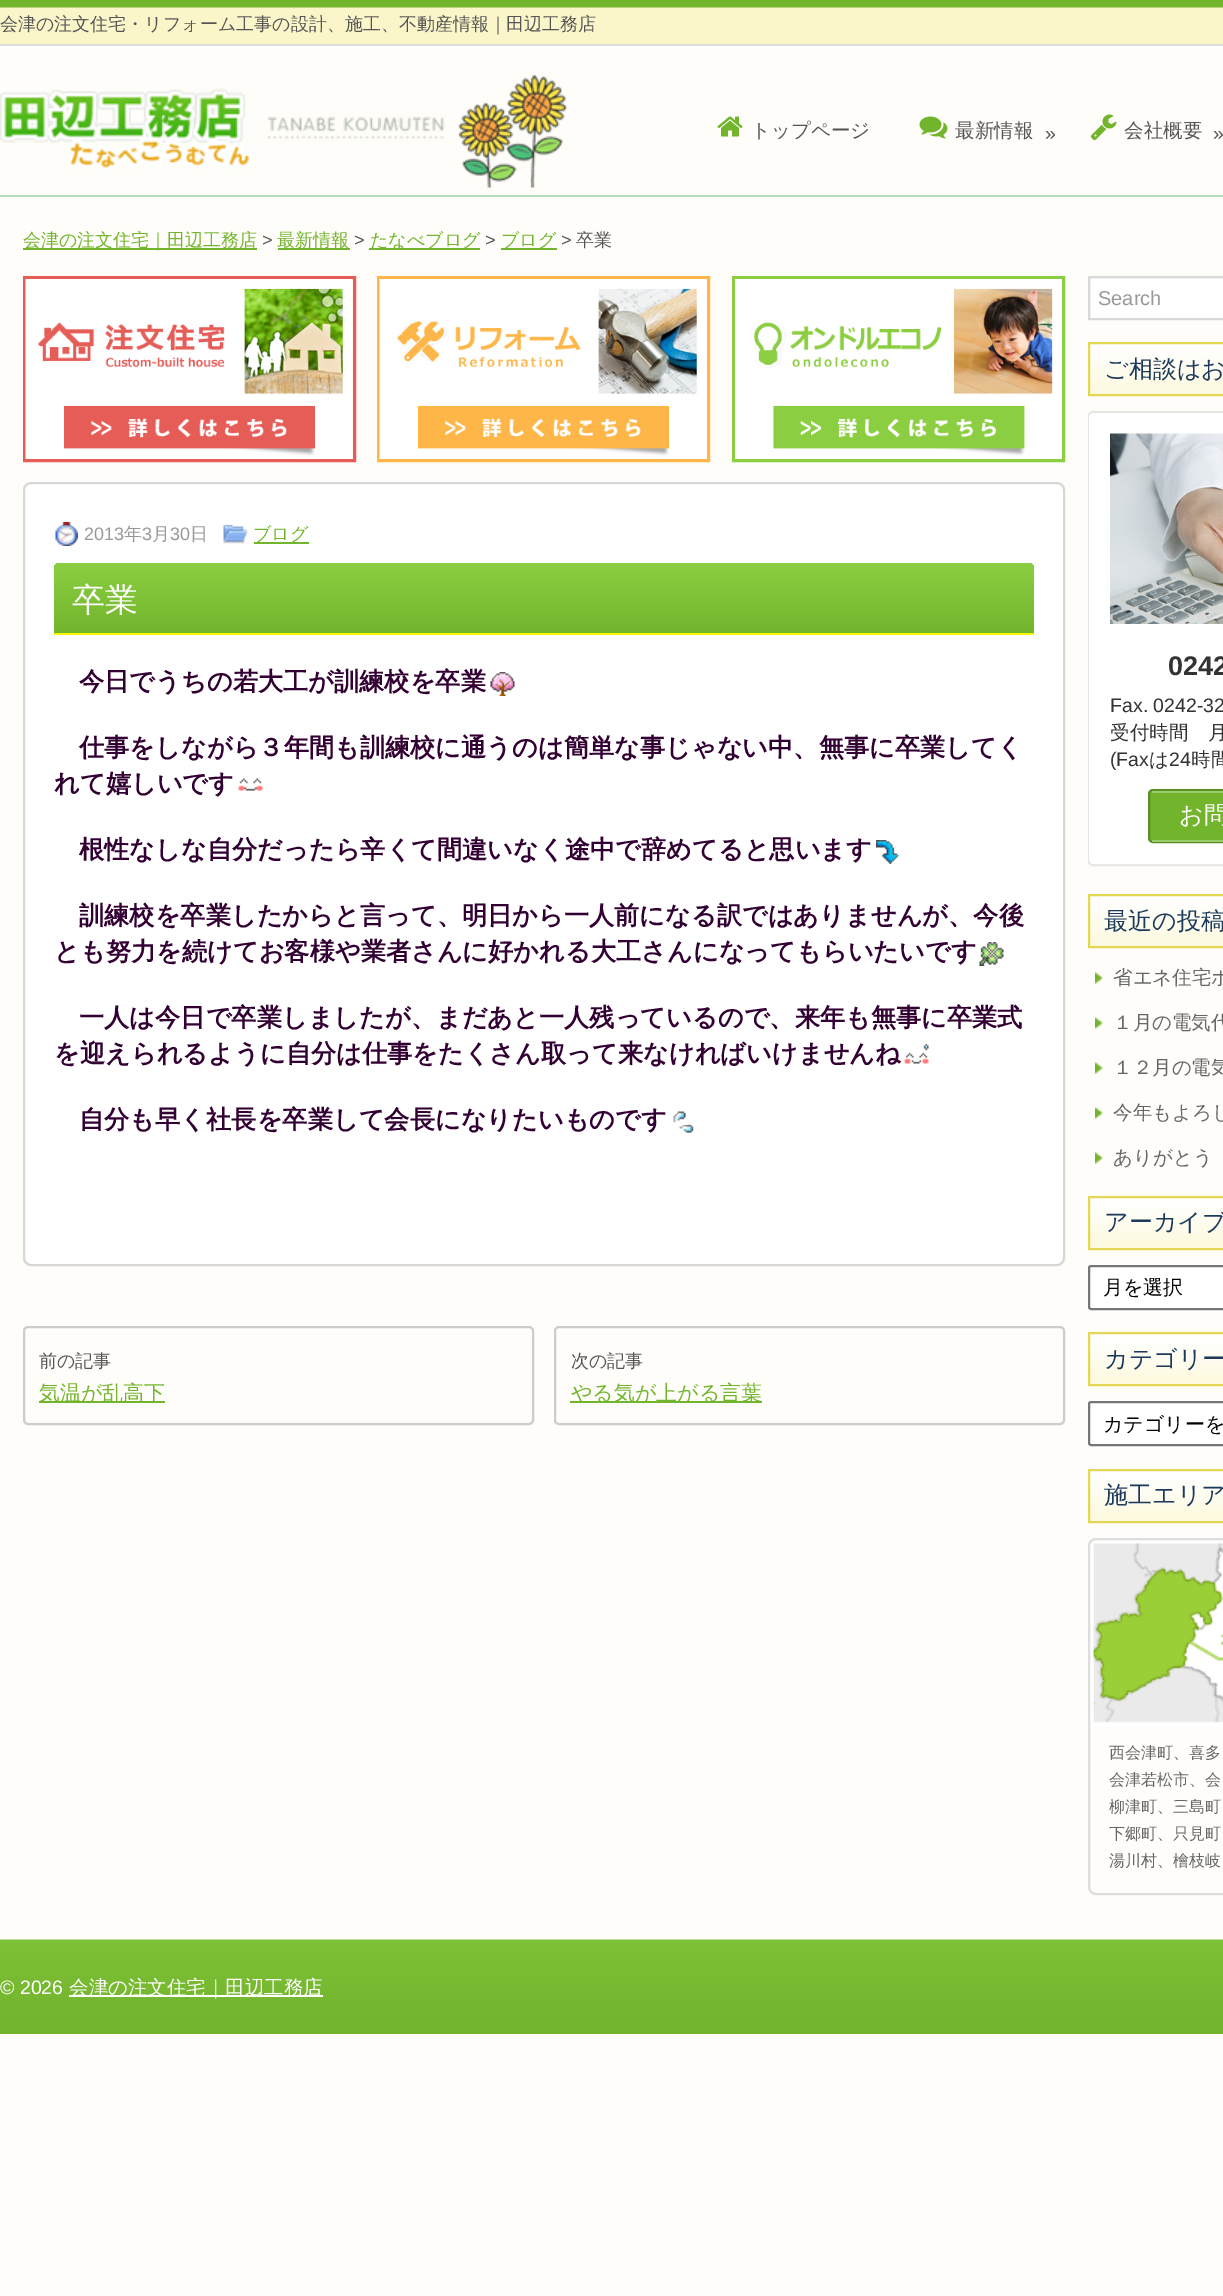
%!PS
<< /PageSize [1223 2296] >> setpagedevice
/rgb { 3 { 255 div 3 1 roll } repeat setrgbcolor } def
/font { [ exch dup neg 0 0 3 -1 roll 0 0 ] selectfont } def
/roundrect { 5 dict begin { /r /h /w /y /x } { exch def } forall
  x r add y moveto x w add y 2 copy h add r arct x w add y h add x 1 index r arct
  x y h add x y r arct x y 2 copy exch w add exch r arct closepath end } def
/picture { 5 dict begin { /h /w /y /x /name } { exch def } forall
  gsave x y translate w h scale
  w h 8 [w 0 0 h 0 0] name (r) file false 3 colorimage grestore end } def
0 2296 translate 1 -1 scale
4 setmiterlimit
255 253 249 rgb
0 0 1223 2296 rectfill
(img/1.rgb) 0 5 1223 39 picture
[
  [0 0 1223 5 114 181 45]
  [0 44 1223 2 221 221 221]
  [0 195 1223 2 183 220 190]
] { aload pop rgb rectfill } forall
(img/2.rgb) 0 75 567 113 picture
(img/3.rgb) 717 116 26 21 picture
(img/4.rgb) 919 116 29 23 picture
(img/5.rgb) 1090 114 27 27 picture
[
  [23 248 234 2 114 181 45]
  [278 248 72 2 114 181 45]
  [369 248 111 2 114 181 45]
  [501 248 56 2 114 181 45]
] { aload pop rgb rectfill } forall
230 93 88 rgb
3 setlinewidth
24.5 277.5 330 183 rectstroke
(img/6.rgb) 25 279 327 180 picture
253 182 71 rgb
378.5 277.5 330 183 rectstroke
(img/7.rgb) 379 279 327 180 picture
140 206 65 rgb
733.5 277.5 330 183 rectstroke
(img/8.rgb) 735 279 327 180 picture
255 255 255 rgb
24 483 1040 782 7 roundrect gsave fill grestore
215 215 215 rgb
2 setlinewidth
stroke
(img/9.rgb) 55 522 23 24 picture
(img/10.rgb) 223 524 25 20 picture
114 181 45 rgb
254 542 55 2 rectfill
gsave 60 563 moveto 1028 563 lineto 1031.5 563 1034 565.5 1034 569 curveto 1034 633 lineto 54 633 lineto 54 569 lineto 54 565.5 56.5 563 60 563 curveto closepath clip newpath
<< /ShadingType 2 /ColorSpace /DeviceRGB /Coords [54 563 54 633] /Extend [true true] /Function << /FunctionType 2 /Domain [0 1] /C0 [0.549 0.808 0.255] /C1 [0.447 0.71 0.176] /N 1 >> >> shfill grestore
248 248 2 rgb
54 633 980 2 rectfill
(img/11.rgb) 490 672 25 24 picture
(img/12.rgb) 238 778 25 13 picture
(img/13.rgb) 876 840 23 24 picture
(img/14.rgb) 979 942 25 24 picture
(img/15.rgb) 904 1044 25 20 picture
(img/16.rgb) 673 1111 21 22 picture
204 204 204 rgb
24 1327 509 97 4 roundrect stroke
114 181 45 rgb
39 1401 126 2 rectfill
204 204 204 rgb
555 1327 509 97 4 roundrect stroke
114 181 45 rgb
570 1401 192 2 rectfill
255 255 255 rgb
1089 277 moveto 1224 277 lineto 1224 319 lineto 1089 319 lineto closepath gsave fill grestore
216 216 216 rgb
stroke
(img/17.rgb) 1087 344 136 51 picture
229 215 86 rgb
1089 343 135 52 rectstroke
229 229 229 rgb
1089 412 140 453 4 roundrect stroke
255 255 255 rgb
1090 414 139 449 4 roundrect gsave fill grestore
stroke
(img/18.rgb) 1110 433 113 191 picture
114 181 45 rgb
1149 790 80 52 4 roundrect gsave fill grestore
91 145 36 rgb
stroke
156 203 108 rgb
1152 791 71 2 rectfill
1152 840 71 2 rectfill
(img/17.rgb) 1087 896 136 51 picture
229 215 86 rgb
1089 895 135 52 rectstroke
(img/19.rgb) 1095 972 8 12 picture
(img/19.rgb) 1095 1017 8 12 picture
(img/19.rgb) 1095 1062 8 12 picture
(img/19.rgb) 1095 1107 8 12 picture
(img/19.rgb) 1095 1152 8 12 picture
(img/20.rgb) 1087 1197 136 51 picture
1089 1197 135 52 rectstroke
255 255 255 rgb
1089 1266 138 43 2 roundrect gsave fill grestore
118 118 118 rgb
stroke
(img/17.rgb) 1087 1334 136 51 picture
229 215 86 rgb
1089 1333 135 52 rectstroke
255 255 255 rgb
1089 1402 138 43 2 roundrect gsave fill grestore
118 118 118 rgb
stroke
(img/20.rgb) 1087 1470 136 51 picture
229 215 86 rgb
1089 1470 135 52 rectstroke
(img/21.rgb) 1089 1539 134 187 picture
221 221 221 rgb
1089 1539 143 355 7 roundrect stroke
(img/22.rgb) 0 1939 1223 95 picture
255 255 255 rgb
69 1995 254 2 rectfill
/WenQuanYiZenHei-Medium 18 font
85 85 85 rgb
0 30 moveto (会津の注文住宅・リフォーム工事の設計、施工、不動産情報｜田辺工務店) show
/WenQuanYiZenHei-Medium 19.5 font
751 137 moveto (トップページ) show
955 137 moveto (最新情報) show
/LiberationSans-Regular 19.5 font
1045 140 moveto (») show
/WenQuanYiZenHei-Medium 19.5 font
1124 137 moveto (会社概要) show
/LiberationSans-Regular 19.5 font
1213 140 moveto (») show
/WenQuanYiZenHei-Medium 18 font
114 181 45 rgb
23 246 moveto (会津の注文住宅｜田辺工務店) show
/LiberationSans-Regular 18 font
85 85 85 rgb
262 246 moveto (>) show
/WenQuanYiZenHei-Medium 18 font
114 181 45 rgb
277 246 moveto (最新情報) show
/LiberationSans-Regular 18 font
85 85 85 rgb
354 246 moveto (>) show
/WenQuanYiZenHei-Medium 18 font
114 181 45 rgb
370 246 moveto (たなべブログ) show
/LiberationSans-Regular 18 font
85 85 85 rgb
485 246 moveto (>) show
/WenQuanYiZenHei-Medium 18 font
114 181 45 rgb
501 246 moveto (ブログ) show
/LiberationSans-Regular 18 font
85 85 85 rgb
561 246 moveto (>) show
/WenQuanYiZenHei-Medium 18 font
576 246 moveto (卒業) show
/LiberationSans-Regular 18 font
153 153 153 rgb
84 540 moveto (2013) show
/WenQuanYiZenHei-Medium 18 font
124 540 moveto (年) show
/LiberationSans-Regular 18 font
142 540 moveto (3) show
/WenQuanYiZenHei-Medium 18 font
152 540 moveto (月) show
/LiberationSans-Regular 18 font
170 540 moveto (30) show
/WenQuanYiZenHei-Medium 18 font
190 540 moveto (日) show
114 181 45 rgb
253 540 moveto (ブログ) show
/WenQuanYiZenHei-Medium 33 font
255 255 255 rgb
72 611 moveto (卒業) show
/WenQuanYiZenHei-Bold 25.2 font
51 0 51 rgb
[
  [(今日でうちの若大工が訓練校を卒業) 79 690]
  [(仕事をしながら３年間も訓練校に通うのは簡単な事じゃない中、無事に卒業してく) 79 756]
  [(れて嬉しいです) 54 792]
  [(根性なしな自分だったら辛くて間違いなく途中で辞めてると思います) 79 858]
  [(訓練校を卒業したからと言って、明日から一人前になる訳ではありませんが、今後) 79 924]
  [(とも努力を続けてお客様や業者さんに好かれる大工さんになってもらいたいです) 54 960]
  [(一人は今日で卒業しましたが、まだあと一人残っているので、来年も無事に卒業式) 79 1026]
  [(を迎えられるように自分は仕事をたくさん取って来なければいけませんね) 54 1062]
  [(自分も早く社長を卒業して会長になりたいものです) 79 1128]
] { aload pop moveto show } forall
/WenQuanYiZenHei-Medium 18 font
85 85 85 rgb
39 1367 moveto (前の記事) show
/WenQuanYiZenHei-Medium 21 font
114 181 45 rgb
39 1400 moveto (気温が乱高下) show
/WenQuanYiZenHei-Medium 18 font
85 85 85 rgb
571 1367 moveto (次の記事) show
/WenQuanYiZenHei-Medium 21 font
114 181 45 rgb
571 1400 moveto (やる気が上がる言葉) show
/LiberationSans-Regular 20 font
153 153 153 rgb
1098 305 moveto (Search) show
/WenQuanYiZenHei-Medium 24 font
28 58 92 rgb
1104 377 moveto (ご相談はお) show
/LiberationSans-Bold 27 font
51 51 51 rgb
1168 675 moveto (0242) show
/LiberationSans-Regular 19.5 font
1110 712 moveto (Fax. 0242-32) show
/WenQuanYiZenHei-Medium 19.5 font
1110 739 moveto (受付時間　月) show
/LiberationSans-Regular 19.5 font
1110 766 moveto (\(Fax) show
/WenQuanYiZenHei-Medium 19.5 font
1149 766 moveto (は) show
/LiberationSans-Regular 19.5 font
1169 766 moveto (24) show
/WenQuanYiZenHei-Medium 19.5 font
1191 766 moveto (時間) show
/WenQuanYiZenHei-Medium 24 font
255 255 255 rgb
1179 823 moveto (お問) show
28 58 92 rgb
1104 929 moveto (最近の投稿) show
/WenQuanYiZenHei-Medium 19.5 font
102 102 102 rgb
[
  [(省エネ住宅ポ) 1113 984]
  [(１月の電気代) 1113 1029]
  [(１２月の電気) 1113 1074]
  [(今年もよろし) 1113 1119]
  [(ありがとう) 1113 1164]
] { aload pop moveto show } forall
/WenQuanYiZenHei-Medium 24 font
28 58 92 rgb
1104 1230 moveto (アーカイブ) show
/WenQuanYiZenHei-Medium 20 font
0 0 0 rgb
1103 1294 moveto (月を選択) show
/WenQuanYiZenHei-Medium 24 font
28 58 92 rgb
1104 1367 moveto (カテゴリー) show
/WenQuanYiZenHei-Medium 20 font
0 0 0 rgb
1103 1431 moveto (カテゴリーを) show
/WenQuanYiZenHei-Medium 24 font
28 58 92 rgb
1104 1503 moveto (施工エリア) show
/WenQuanYiZenHei-Medium 16 font
102 102 102 rgb
[
  [(西会津町、喜多) 1109 1758]
  [(会津若松市、会) 1109 1785]
  [(柳津町、三島町) 1109 1812]
  [(下郷町、只見町) 1109 1839]
  [(湯川村、檜枝岐) 1109 1866]
] { aload pop moveto show } forall
/LiberationSans-Regular 19.5 font
255 255 255 rgb
0 1994 moveto (© 2026) show
/WenQuanYiZenHei-Medium 19.5 font
69 1994 moveto (会津の注文住宅｜田辺工務店) show
showpage
